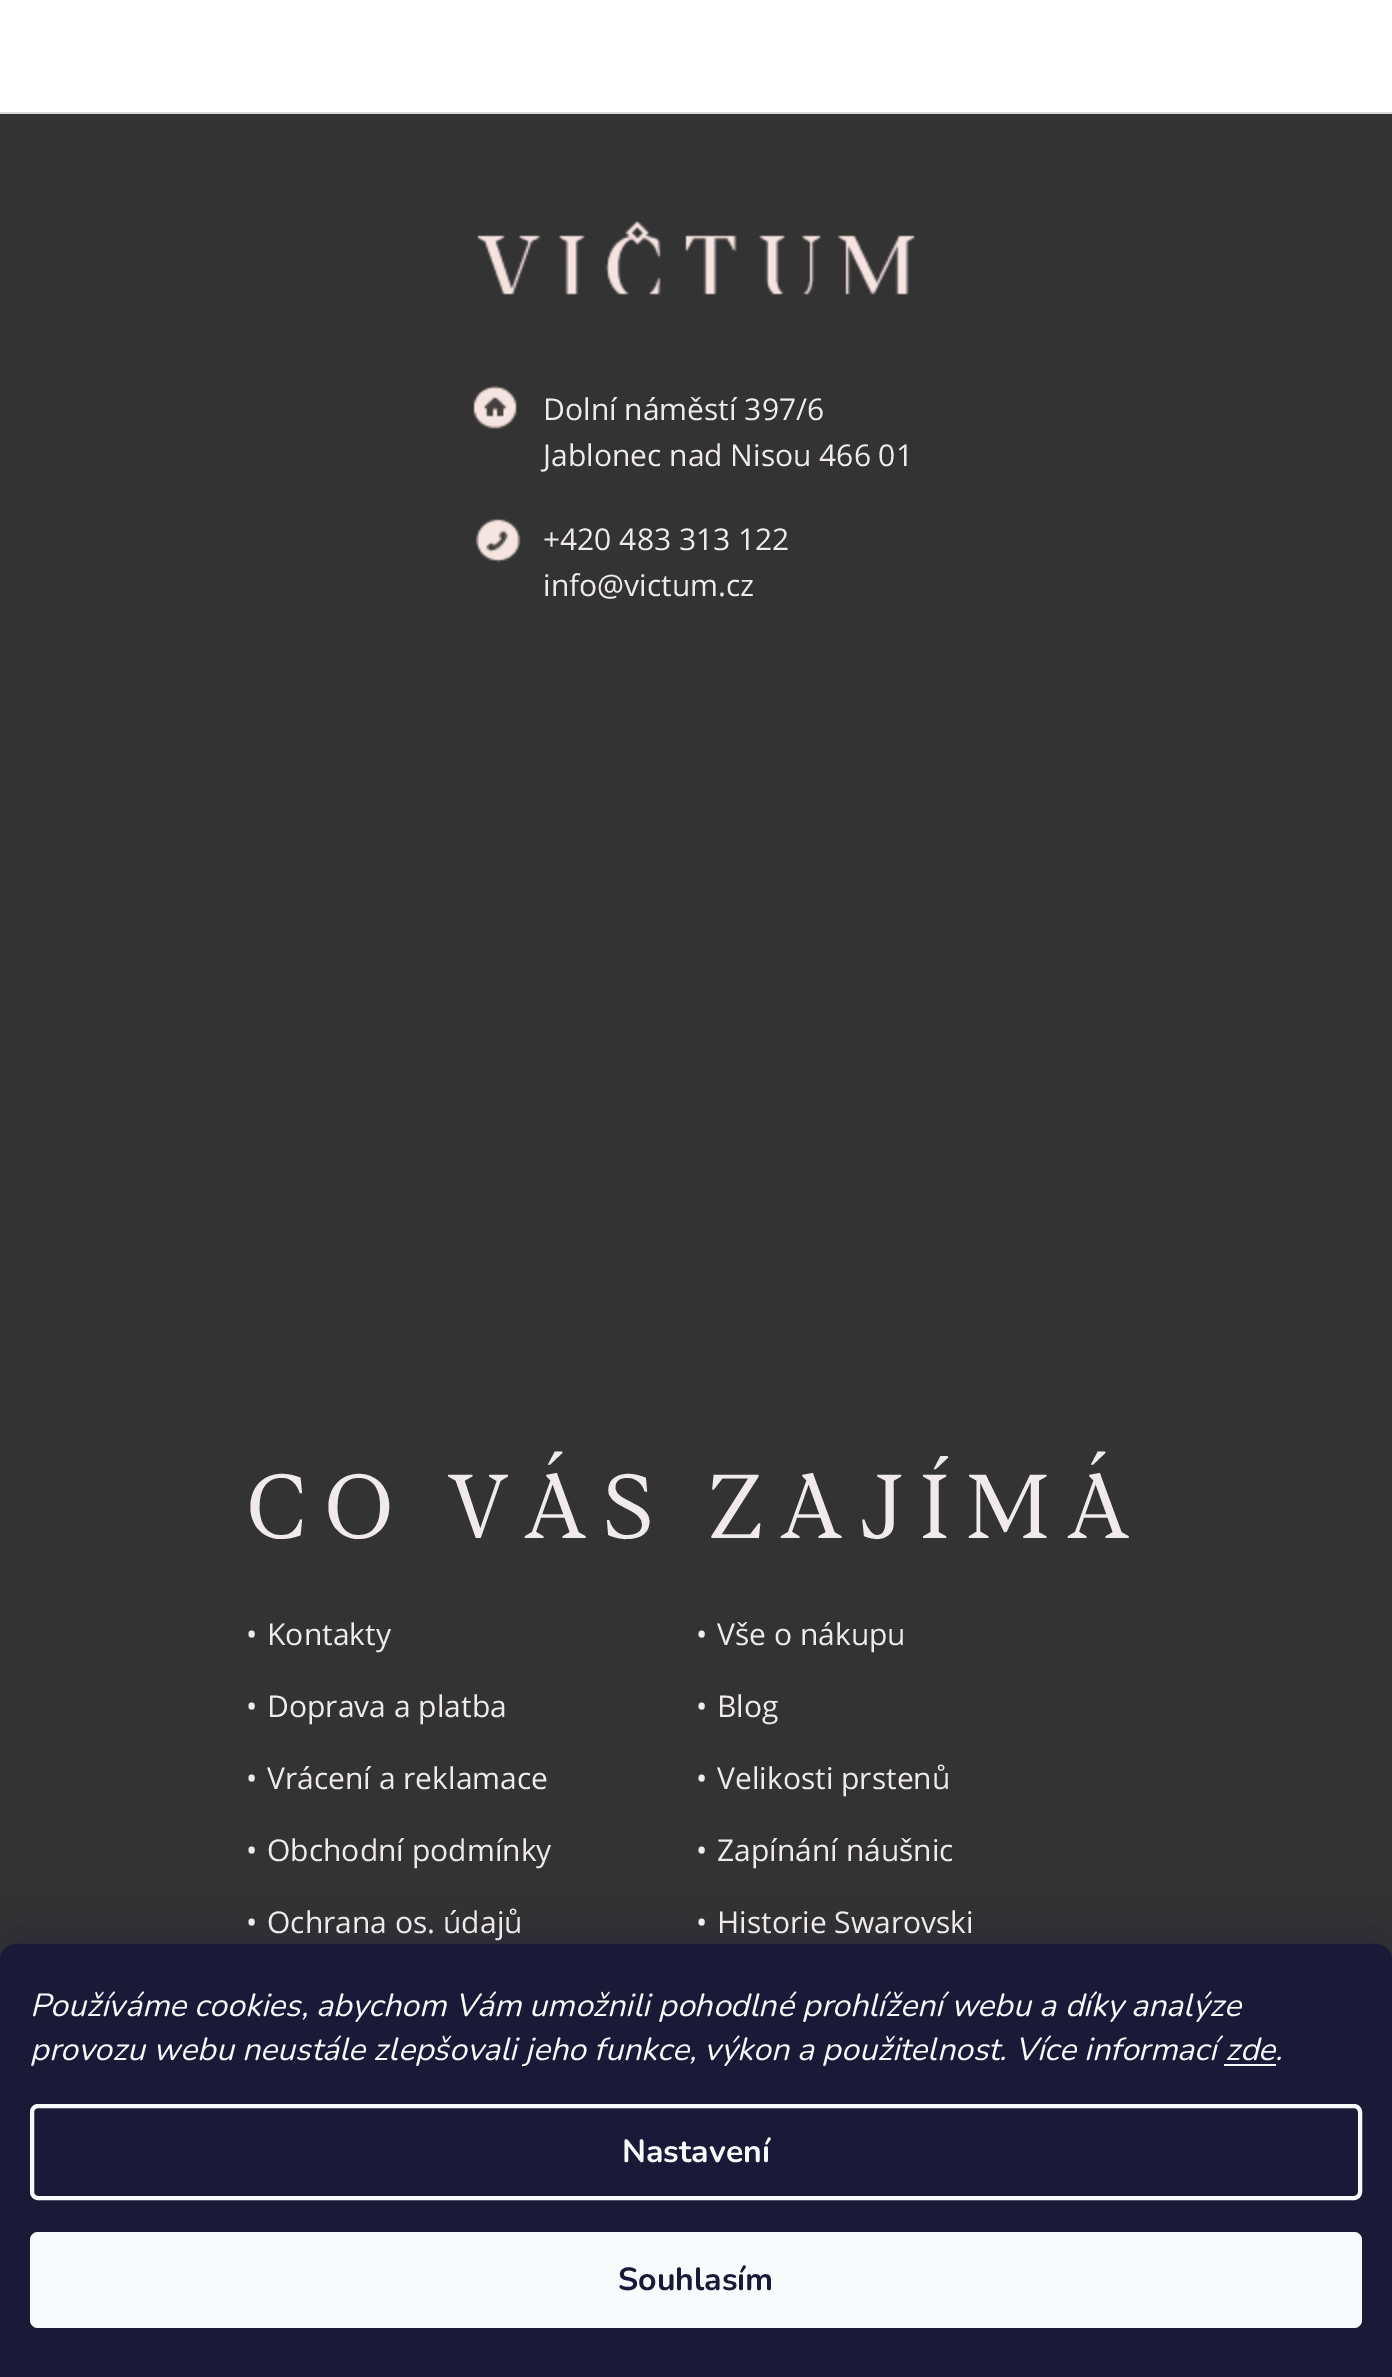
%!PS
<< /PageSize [1392 2377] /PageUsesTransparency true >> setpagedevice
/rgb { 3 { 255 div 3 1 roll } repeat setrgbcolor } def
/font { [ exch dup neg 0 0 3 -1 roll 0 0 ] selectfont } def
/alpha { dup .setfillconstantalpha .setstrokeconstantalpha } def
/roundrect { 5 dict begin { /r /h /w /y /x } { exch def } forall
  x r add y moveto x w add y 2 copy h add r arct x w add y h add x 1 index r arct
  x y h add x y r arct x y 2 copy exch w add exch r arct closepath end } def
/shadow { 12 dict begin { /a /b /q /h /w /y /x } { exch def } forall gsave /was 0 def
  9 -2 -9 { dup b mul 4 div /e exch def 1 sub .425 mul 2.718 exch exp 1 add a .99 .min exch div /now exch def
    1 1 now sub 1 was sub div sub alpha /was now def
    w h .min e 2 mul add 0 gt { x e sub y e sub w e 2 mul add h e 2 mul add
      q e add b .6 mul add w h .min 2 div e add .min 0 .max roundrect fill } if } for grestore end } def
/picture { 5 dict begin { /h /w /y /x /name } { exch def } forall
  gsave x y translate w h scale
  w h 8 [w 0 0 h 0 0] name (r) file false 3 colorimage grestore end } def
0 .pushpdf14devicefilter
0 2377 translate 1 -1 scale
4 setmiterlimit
255 255 255 rgb
0 0 1392 2377 rectfill
218 218 218 rgb
0 112 1392 2 rectfill
51 51 51 rgb
0 114 1392 1846 rectfill
(img/1.rgb) 477 221 438 74 picture
(img/2.rgb) 473 386 44 43 picture
(img/3.rgb) 475 519 46 44 picture
27 25 57 rgb
0 1944 1392 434 16 30 0.5 shadow
26 25 55 rgb
16 1944 moveto 1376 1944 lineto 1385 1944 1392 1951 1392 1960 curveto 1392 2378 lineto 0 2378 lineto 0 1960 lineto 0 1951 7 1944 16 1944 curveto closepath fill
248 250 251 rgb
1224 2064 52 2 rectfill
4 setlinewidth
32 2106 1328 92 6 roundrect stroke
30 2232 1332 96 8 roundrect fill
/OpenSans-Regular 30 font
240 235 234 rgb
[
  [(Dolní náměstí 397/6) 543 420]
  [(Jablonec nad Nisou 466 01) 543 466]
  [(+420 483 313 122) 543 550]
  [(info@victum.cz) 543 596]
] { aload pop moveto show } forall
/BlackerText-Black 90 font
246 1538 moveto 15.25 0 (CO VÁS ZAJÍMÁ) ashow
/OpenSans-Regular 30 font
[
  [(•) 246 1645]
  [(Kontakty) 267 1645]
  [(•) 246 1717]
  [(Doprava a platba) 267 1717]
  [(•) 246 1789]
  [(Vrácení a reklamace) 267 1789]
  [(•) 246 1861]
  [(Obchodní podmínky) 267 1861]
  [(•) 246 1933]
  [(Ochrana os. údajů) 267 1933]
  [(•) 696 1645]
  [(Vše o nákupu) 717 1645]
  [(•) 696 1717]
  [(Blog) 717 1717]
  [(•) 696 1789]
  [(Velikosti prstenů) 717 1789]
  [(•) 696 1861]
  [(Zapínání náušnic) 717 1861]
  [(•) 696 1933]
  [(Historie Swarovski) 717 1933]
] { aload pop moveto show } forall
/Nunito-Italic 32 font
248 250 251 rgb
30 2016 moveto (Používáme cookies, abychom Vám umožnili pohodlné prohlížení webu a díky analýze) show
30 2060 moveto (provozu webu neustále zlepšovali jeho funkce, výkon a použitelnost. Více informací zde.) show
/Nunito-Bold 32 font
622 2162 moveto (Nastavení) show
26 25 55 rgb
618 2290 moveto (Souhlasím) show
.poppdf14devicefilter showpage
